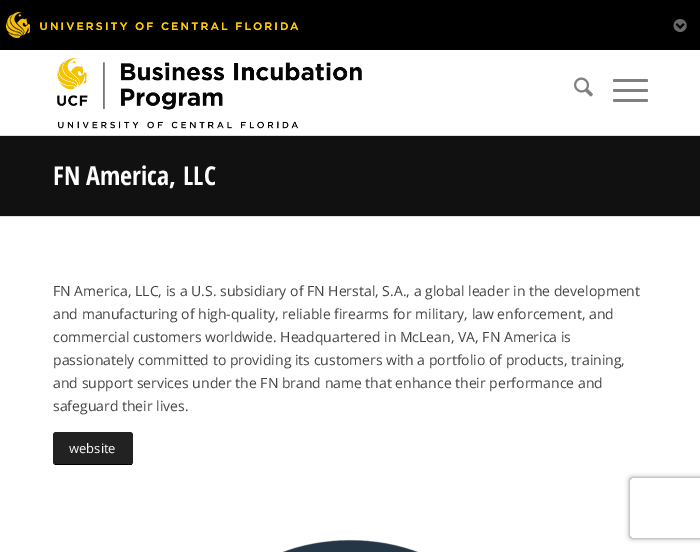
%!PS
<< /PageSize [700 552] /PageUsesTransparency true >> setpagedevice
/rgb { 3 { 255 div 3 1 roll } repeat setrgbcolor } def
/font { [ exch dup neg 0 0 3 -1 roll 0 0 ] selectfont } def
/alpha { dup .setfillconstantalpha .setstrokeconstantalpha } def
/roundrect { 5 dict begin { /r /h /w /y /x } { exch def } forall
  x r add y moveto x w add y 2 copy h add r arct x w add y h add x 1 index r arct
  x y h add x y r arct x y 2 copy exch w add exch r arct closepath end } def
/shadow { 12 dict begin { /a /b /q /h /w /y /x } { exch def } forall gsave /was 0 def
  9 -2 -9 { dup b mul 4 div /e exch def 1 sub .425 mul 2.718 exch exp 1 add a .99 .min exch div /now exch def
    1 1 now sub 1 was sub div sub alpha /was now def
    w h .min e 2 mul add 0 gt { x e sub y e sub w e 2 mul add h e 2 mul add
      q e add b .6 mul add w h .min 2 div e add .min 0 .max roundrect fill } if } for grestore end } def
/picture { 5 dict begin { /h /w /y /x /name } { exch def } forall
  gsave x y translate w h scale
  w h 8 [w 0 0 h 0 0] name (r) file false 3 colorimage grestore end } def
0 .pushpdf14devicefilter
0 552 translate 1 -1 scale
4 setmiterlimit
255 255 255 rgb
0 0 700 552 rectfill
0 0 0 rgb
0 0 700 50 rectfill
(img/1.rgb) 6 12 293 26 picture
(img/2.rgb) 673 19 14 13 picture
225 225 225 rgb
0 135 700 1 rectfill
(img/3.rgb) 57 58 305 71 picture
(img/4.rgb) 574 77 19 20 picture
128 128 128 rgb
613 89 35 3 1.5 roundrect fill
613 79 35 3 1.5 roundrect fill
613 99 35 3 1.5 roundrect fill
17 17 17 rgb
0 136 700 80 rectfill
225 225 225 rgb
0 216 700 1 rectfill
34 34 34 rgb
53 432 80 33 3 roundrect fill
0 0 0 rgb
55 464 77 1 rectfill
(img/5.rgb) 282 539 137 13 picture
gsave
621 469 moveto 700 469 lineto 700 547 lineto 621 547 lineto closepath 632 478 moveto 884 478 lineto 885 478 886 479 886 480 curveto 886 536 lineto 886 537 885 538 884 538 curveto 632 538 lineto 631 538 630 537 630 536 curveto 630 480 lineto 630 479 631 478 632 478 curveto closepath eoclip newpath
128 128 128 rgb
630 478 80 60 2 2.5 1 shadow
grestore
/OpenSansCondensed-Bold 26 font
255 255 255 rgb
53 185 moveto (FN America, LLC) show
/OpenSans-Regular 14 font
68 68 68 rgb
[
  [(FN America, LLC, is a U.S. subsidiary of FN Herstal, S.A., a global leader in the development) 53 296]
  [(and manufacturing of high-quality, reliable firearms for military, law enforcement, and) 53 319]
  [(commercial customers worldwide. Headquartered in McLean, VA, FN America is) 53 342]
  [(passionately committed to providing its customers with a portfolio of products, training,) 53 365]
  [(and support services under the FN brand name that enhance their performance and) 53 388]
  [(safeguard their lives.) 53 411]
] { aload pop moveto show } forall
/OpenSans-Regular 13 font
255 255 255 rgb
69 453 moveto (website) show
.poppdf14devicefilter showpage
